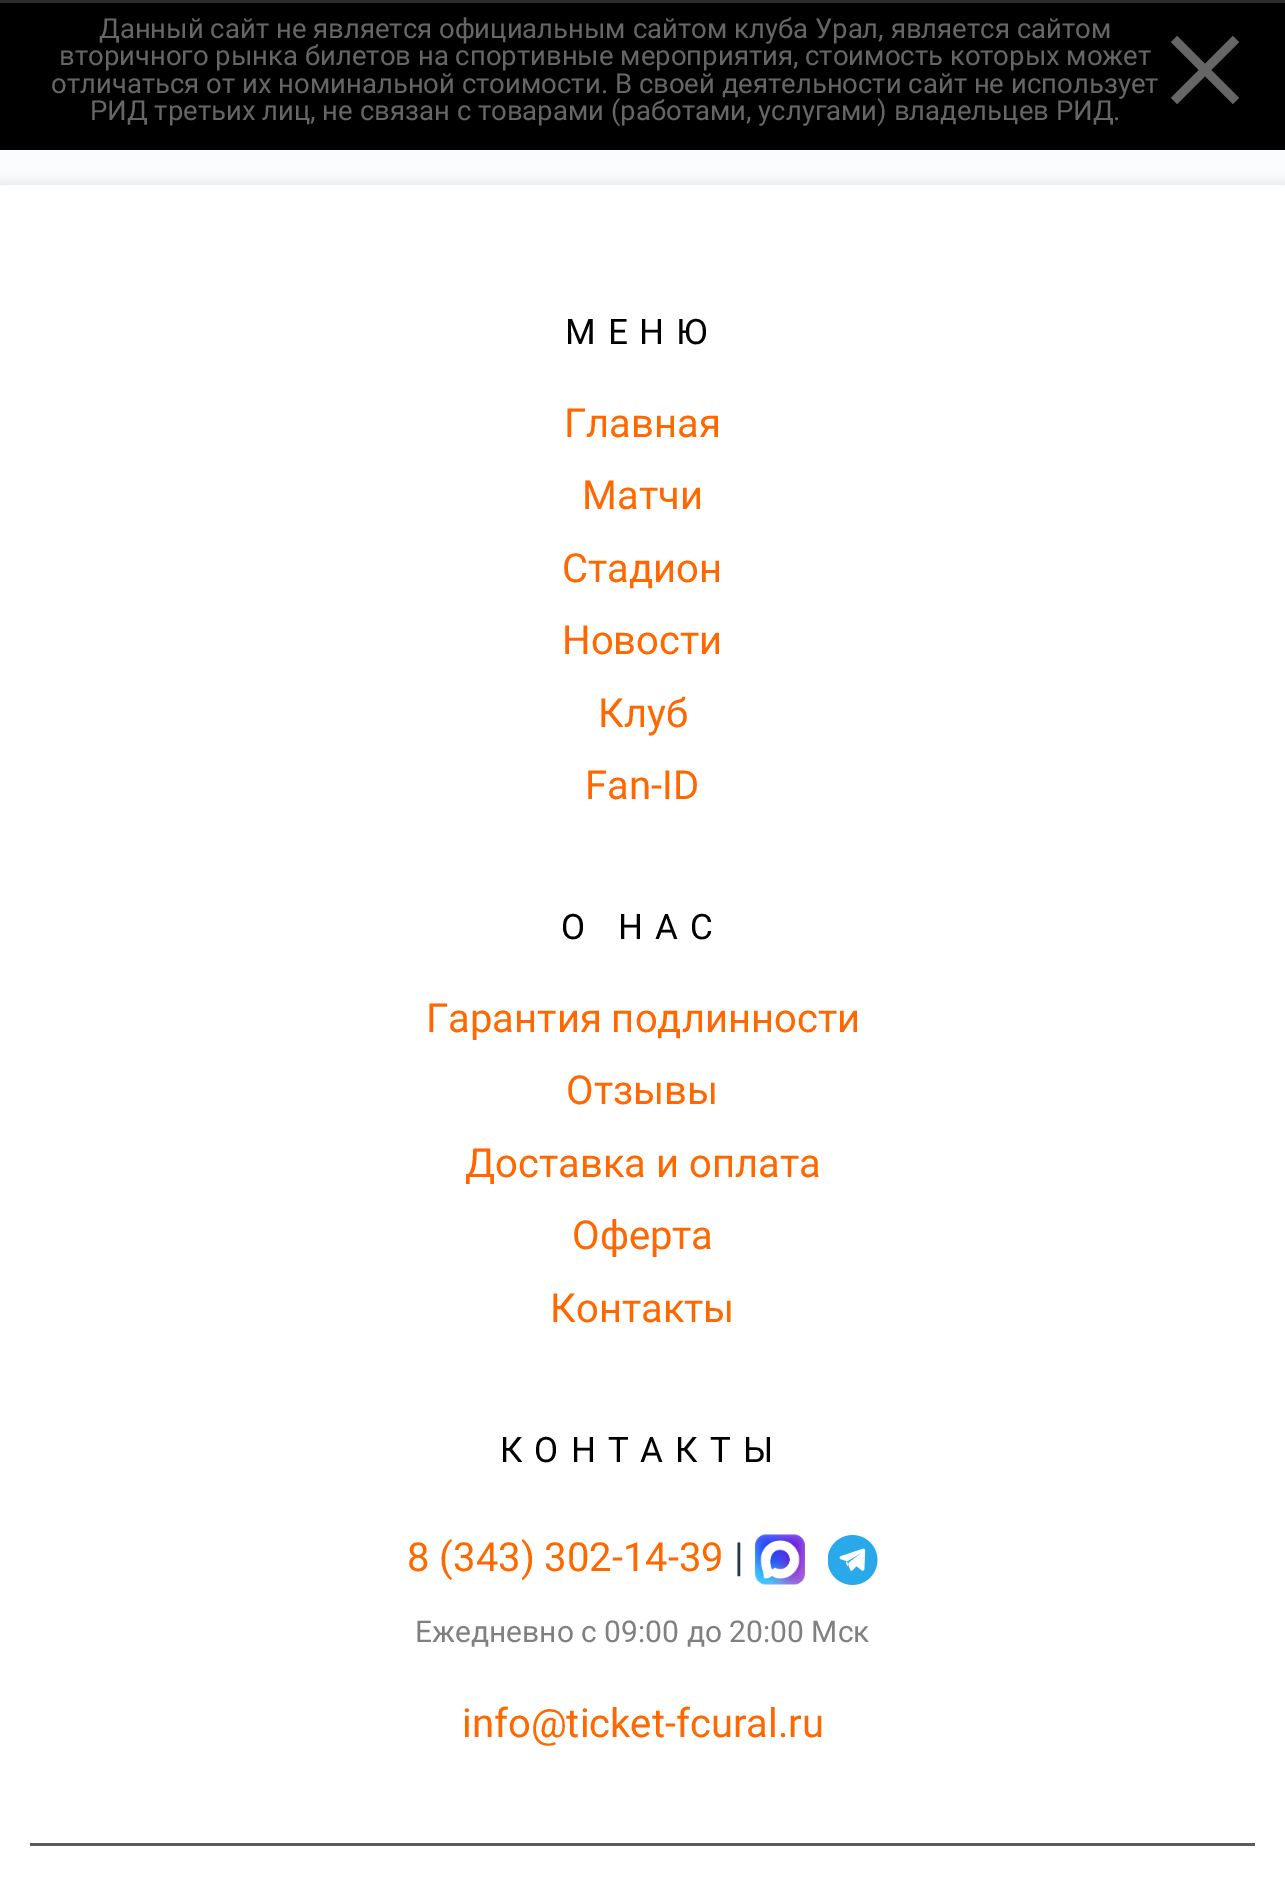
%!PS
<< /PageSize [1285 1891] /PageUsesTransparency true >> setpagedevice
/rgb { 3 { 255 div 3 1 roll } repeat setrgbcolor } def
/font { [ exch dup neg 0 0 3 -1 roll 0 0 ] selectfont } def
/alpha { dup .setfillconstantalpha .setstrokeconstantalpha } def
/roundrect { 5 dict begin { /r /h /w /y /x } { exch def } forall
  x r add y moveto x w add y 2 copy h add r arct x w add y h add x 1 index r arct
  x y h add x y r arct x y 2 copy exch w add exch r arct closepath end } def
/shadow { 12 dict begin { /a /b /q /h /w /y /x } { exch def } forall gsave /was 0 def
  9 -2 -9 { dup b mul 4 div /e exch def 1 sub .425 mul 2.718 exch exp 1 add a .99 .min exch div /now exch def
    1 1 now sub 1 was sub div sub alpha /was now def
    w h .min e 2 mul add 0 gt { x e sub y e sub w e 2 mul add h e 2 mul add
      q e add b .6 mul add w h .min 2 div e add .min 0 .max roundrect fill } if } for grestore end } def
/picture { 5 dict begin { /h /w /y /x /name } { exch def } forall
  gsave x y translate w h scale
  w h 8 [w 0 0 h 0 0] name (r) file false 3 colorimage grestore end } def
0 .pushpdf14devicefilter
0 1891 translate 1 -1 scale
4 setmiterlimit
251 252 253 rgb
0 0 1285 1891 rectfill
0 0 0 rgb
0 3 1285 147 rectfill
44 44 44 rgb
0 0 1285 3 rectfill
102 102 102 rgb
8.8 setlinewidth
1174 39 moveto 1236 101 lineto 1236 39 moveto 1174 101 lineto stroke
0 0 0 rgb
0 183 1285 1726 0 6 0.1 shadow
255 255 255 rgb
0 185 1285 1706 rectfill
(img/1.rgb) 755 1534 50 51 picture
(img/2.rgb) 828 1535 50 50 picture
90 91 95 rgb
30 1843 1225 3 rectfill
/Roboto-Regular 27.5 font
102 102 102 rgb
[
  [(Данный сайт не является официальным сайтом клуба Урал, является сайтом) 99 38]
  [(вторичного рынка билетов на спортивные мероприятия, стоимость которых может) 59 65]
  [(отличаться от их номинальной стоимости. В своей деятельности сайт не использует) 51 93]
  [(РИД третьих лиц, не связан с товарами \(работами, услугами\) владельцев РИД.) 90 120]
] { aload pop moveto show } forall
/Roboto-Regular 35 font
0 0 0 rgb
565 344 moveto 12 0 (МЕНЮ) ashow
/Roboto-Regular 40 font
255 104 0 rgb
[
  [(Главная) 564 437]
  [(Матчи) 582 509]
  [(Стадион) 562 582]
  [(Новости) 562 654]
  [(Клуб) 598 727]
  [(Fan-ID) 585 799]
] { aload pop moveto show } forall
/Roboto-Regular 35 font
0 0 0 rgb
561 939 moveto 12 0 (О НАС) ashow
/Roboto-Regular 40 font
255 104 0 rgb
[
  [(Гарантия подлинности) 426 1032]
  [(Отзывы) 566 1104]
  [(Доставка и оплата) 465 1177]
  [(Оферта) 572 1249]
  [(Контакты) 550 1322]
] { aload pop moveto show } forall
/Roboto-Regular 35 font
0 0 0 rgb
500 1462 moveto 12 0 (КОНТАКТЫ) ashow
/Roboto-Regular 40 font
255 104 0 rgb
407 1571 moveto (8 \(343\) 302-14-39) show
35 53 80 rgb
734 1571 moveto (|) show
/Roboto-Regular 30 font
128 128 128 rgb
415 1642 moveto (Ежедневно с 09:00 до 20:00 Мск) show
/Roboto-Regular 40 font
255 104 0 rgb
462 1737 moveto (info@ticket-fcural.ru) show
.poppdf14devicefilter showpage
